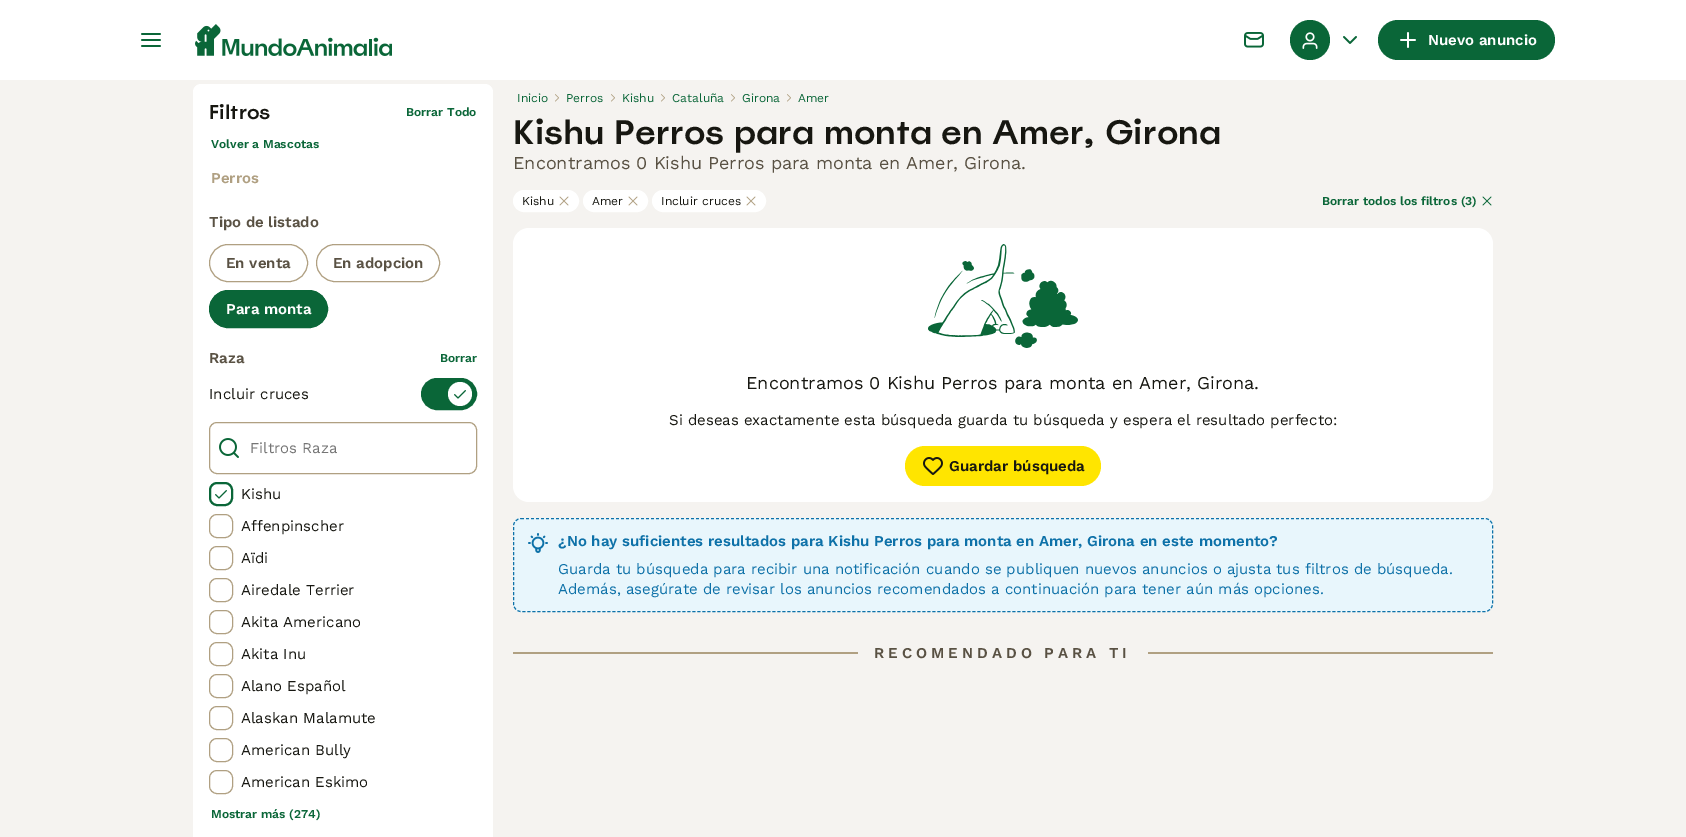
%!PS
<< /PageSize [1686 837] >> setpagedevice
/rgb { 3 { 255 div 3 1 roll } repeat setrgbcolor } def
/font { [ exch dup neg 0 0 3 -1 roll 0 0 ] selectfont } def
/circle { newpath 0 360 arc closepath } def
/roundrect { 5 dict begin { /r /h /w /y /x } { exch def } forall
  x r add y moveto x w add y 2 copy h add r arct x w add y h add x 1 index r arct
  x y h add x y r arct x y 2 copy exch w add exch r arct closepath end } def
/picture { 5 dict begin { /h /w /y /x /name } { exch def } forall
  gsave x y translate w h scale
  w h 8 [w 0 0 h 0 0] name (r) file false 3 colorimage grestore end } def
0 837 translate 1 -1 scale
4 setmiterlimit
245 243 240 rgb
0 0 1686 837 rectfill
255 255 255 rgb
0 0 1686 80 rectfill
(img/1.rgb) 141 33 20 14 picture
(img/2.rgb) 195 24 197 32 picture
(img/3.rgb) 1244 32 20 16 picture
10 102 56 rgb
1310 40 20 circle fill
(img/4.rgb) 1302 32 16 17 picture
(img/5.rgb) 1343 36 14 8 picture
1378 20 177 40 20 roundrect fill
(img/6.rgb) 1400 32 16 16 picture
255 255 255 rgb
193 84 300 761 8 roundrect fill
176 160 130 rgb
209.5 244.5 98 37 18.5 roundrect stroke
316.5 244.5 123 37 18.5 roundrect stroke
10 102 56 rgb
209.5 290.5 118 37 18.5 roundrect gsave fill grestore
stroke
422 379 54 30 15 roundrect gsave fill grestore
2 setlinewidth
stroke
255 255 255 rgb
460 394 12 circle fill
(img/7.rgb) 454 390 12 9 picture
176 160 130 rgb
1 setlinewidth
209.5 422.5 267 51 7.5 roundrect stroke
(img/8.rgb) 219 438 20 20 picture
10 102 56 rgb
2 setlinewidth
210 483 22 22 7 roundrect stroke
(img/7.rgb) 215 490 12 9 picture
176 160 130 rgb
1 setlinewidth
209.5 514.5 23 23 7.5 roundrect stroke
209.5 546.5 23 23 7.5 roundrect stroke
209.5 578.5 23 23 7.5 roundrect stroke
209.5 610.5 23 23 7.5 roundrect stroke
209.5 642.5 23 23 7.5 roundrect stroke
209.5 674.5 23 23 7.5 roundrect stroke
209.5 706.5 23 23 7.5 roundrect stroke
209.5 738.5 23 23 7.5 roundrect stroke
209.5 770.5 23 23 7.5 roundrect stroke
(img/9.rgb) 555 94 4 8 picture
(img/9.rgb) 611 94 4 8 picture
(img/9.rgb) 661 94 4 8 picture
(img/9.rgb) 731 94 4 8 picture
(img/9.rgb) 787 94 4 8 picture
255 255 255 rgb
513.5 190.5 65 21 10.5 roundrect gsave fill grestore
stroke
(img/10.rgb) 559 196 10 10 picture
583.5 190.5 64 21 10.5 roundrect gsave fill grestore
stroke
(img/10.rgb) 628 196 10 10 picture
652.5 190.5 113 21 10.5 roundrect gsave fill grestore
stroke
(img/10.rgb) 746 196 10 10 picture
(img/11.rgb) 1482 196 10 10 picture
513 228 980 274 16 roundrect fill
(img/12.rgb) 928 244 150 104 picture
255 229 0 rgb
905 446 196 40 20 roundrect fill
(img/13.rgb) 923 457 20 18 picture
232 246 252 rgb
513 518 980 94 8 roundrect fill
13 113 168 rgb
[3 2] 0 setdash
521 518.5 moveto 1485 518.5 lineto 1489 518.5 1492.5 522 1492.5 526 curveto 1492.5 604 lineto 1492.5 608 1489 611.5 1485 611.5 curveto 521 611.5 lineto 517 611.5 513.5 608 513.5 604 curveto 513.5 526 lineto 513.5 522 517 518.5 521 518.5 curveto closepath stroke
(img/14.rgb) 528 533 20 20 picture
176 160 130 rgb
513 652 980 2 rectfill
245 243 240 rgb
858 652 290 2 rectfill
/WorkSans-SemiBold 15 font
255 255 255 rgb
1428 45 moveto (Nuevo anuncio) show
/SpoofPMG-Medium 20 font
23 23 17 rgb
209 119 moveto (Filtros) show
/WorkSans-SemiBold 12 font
10 102 56 rgb
406 116 moveto (Borrar Todo) show
211 148 moveto (Volver a Mascotas) show
/WorkSans-SemiBold 15 font
176 160 130 rgb
211 183 moveto (Perros) show
89 81 67 rgb
[
  [(Tipo de listado) 209 227]
  [(En venta) 226 268]
  [(En adopcion) 333 268]
] { aload pop moveto show } forall
255 255 255 rgb
226 314 moveto (Para monta) show
89 81 67 rgb
209 363 moveto (Raza) show
/WorkSans-SemiBold 12 font
10 102 56 rgb
440 362 moveto (Borrar) show
/WorkSans-Regular 15 font
23 23 17 rgb
209 399 moveto (Incluir cruces) show
117 117 117 rgb
250 453 moveto (Filtros Raza) show
23 23 17 rgb
[
  [(Kishu) 241 499]
  [(Affenpinscher) 241 531]
  [(Aïdi) 241 563]
  [(Airedale Terrier) 241 595]
  [(Akita Americano) 241 627]
  [(Akita Inu) 241 659]
  [(Alano Español) 241 691]
  [(Alaskan Malamute) 241 723]
  [(American Bully) 241 755]
  [(American Eskimo) 241 787]
] { aload pop moveto show } forall
/WorkSans-SemiBold 12 font
10 102 56 rgb
211 818 moveto (Mostrar más \(274\)) show
/WorkSans-Regular 12 font
[
  [(Inicio) 517 102]
  [(Perros) 566 102]
  [(Kishu) 622 102]
  [(Cataluña) 672 102]
  [(Girona) 742 102]
  [(Amer) 798 102]
] { aload pop moveto show } forall
/SpoofPMG-Medium 34 font
23 23 17 rgb
513 144 moveto (Kishu Perros para monta en Amer, Girona) show
/WorkSans-Regular 18 font
89 81 67 rgb
513 169 moveto (Encontramos 0 Kishu Perros para monta en Amer, Girona.) show
/WorkSans-Regular 12 font
23 23 17 rgb
[
  [(Kishu) 522 205]
  [(Amer) 592 205]
  [(Incluir cruces) 661 205]
] { aload pop moveto show } forall
/WorkSans-SemiBold 12 font
10 102 56 rgb
1322 205 moveto (Borrar todos los filtros \(3\)) show
/WorkSans-Regular 18 font
23 23 17 rgb
746 389 moveto (Encontramos 0 Kishu Perros para monta en Amer, Girona.) show
/WorkSans-Regular 15 font
669 425 moveto (Si deseas exactamente esta búsqueda guarda tu búsqueda y espera el resultado perfecto:) show
/WorkSans-SemiBold 15 font
949 471 moveto (Guardar búsqueda) show
13 113 168 rgb
558 546 moveto (¿No hay suficientes resultados para Kishu Perros para monta en Amer, Girona en este momento?) show
/WorkSans-Regular 15 font
558 574 moveto (Guarda tu búsqueda para recibir una notificación cuando se publiquen nuevos anuncios o ajusta tus filtros de búsqueda.) show
558 594 moveto (Además, asegúrate de revisar los anuncios recomendados a continuación para tener aún más opciones.) show
/WorkSans-SemiBold 15 font
89 81 67 rgb
874 658 moveto 4 0 (RECOMENDADO PARA TI) ashow
showpage
